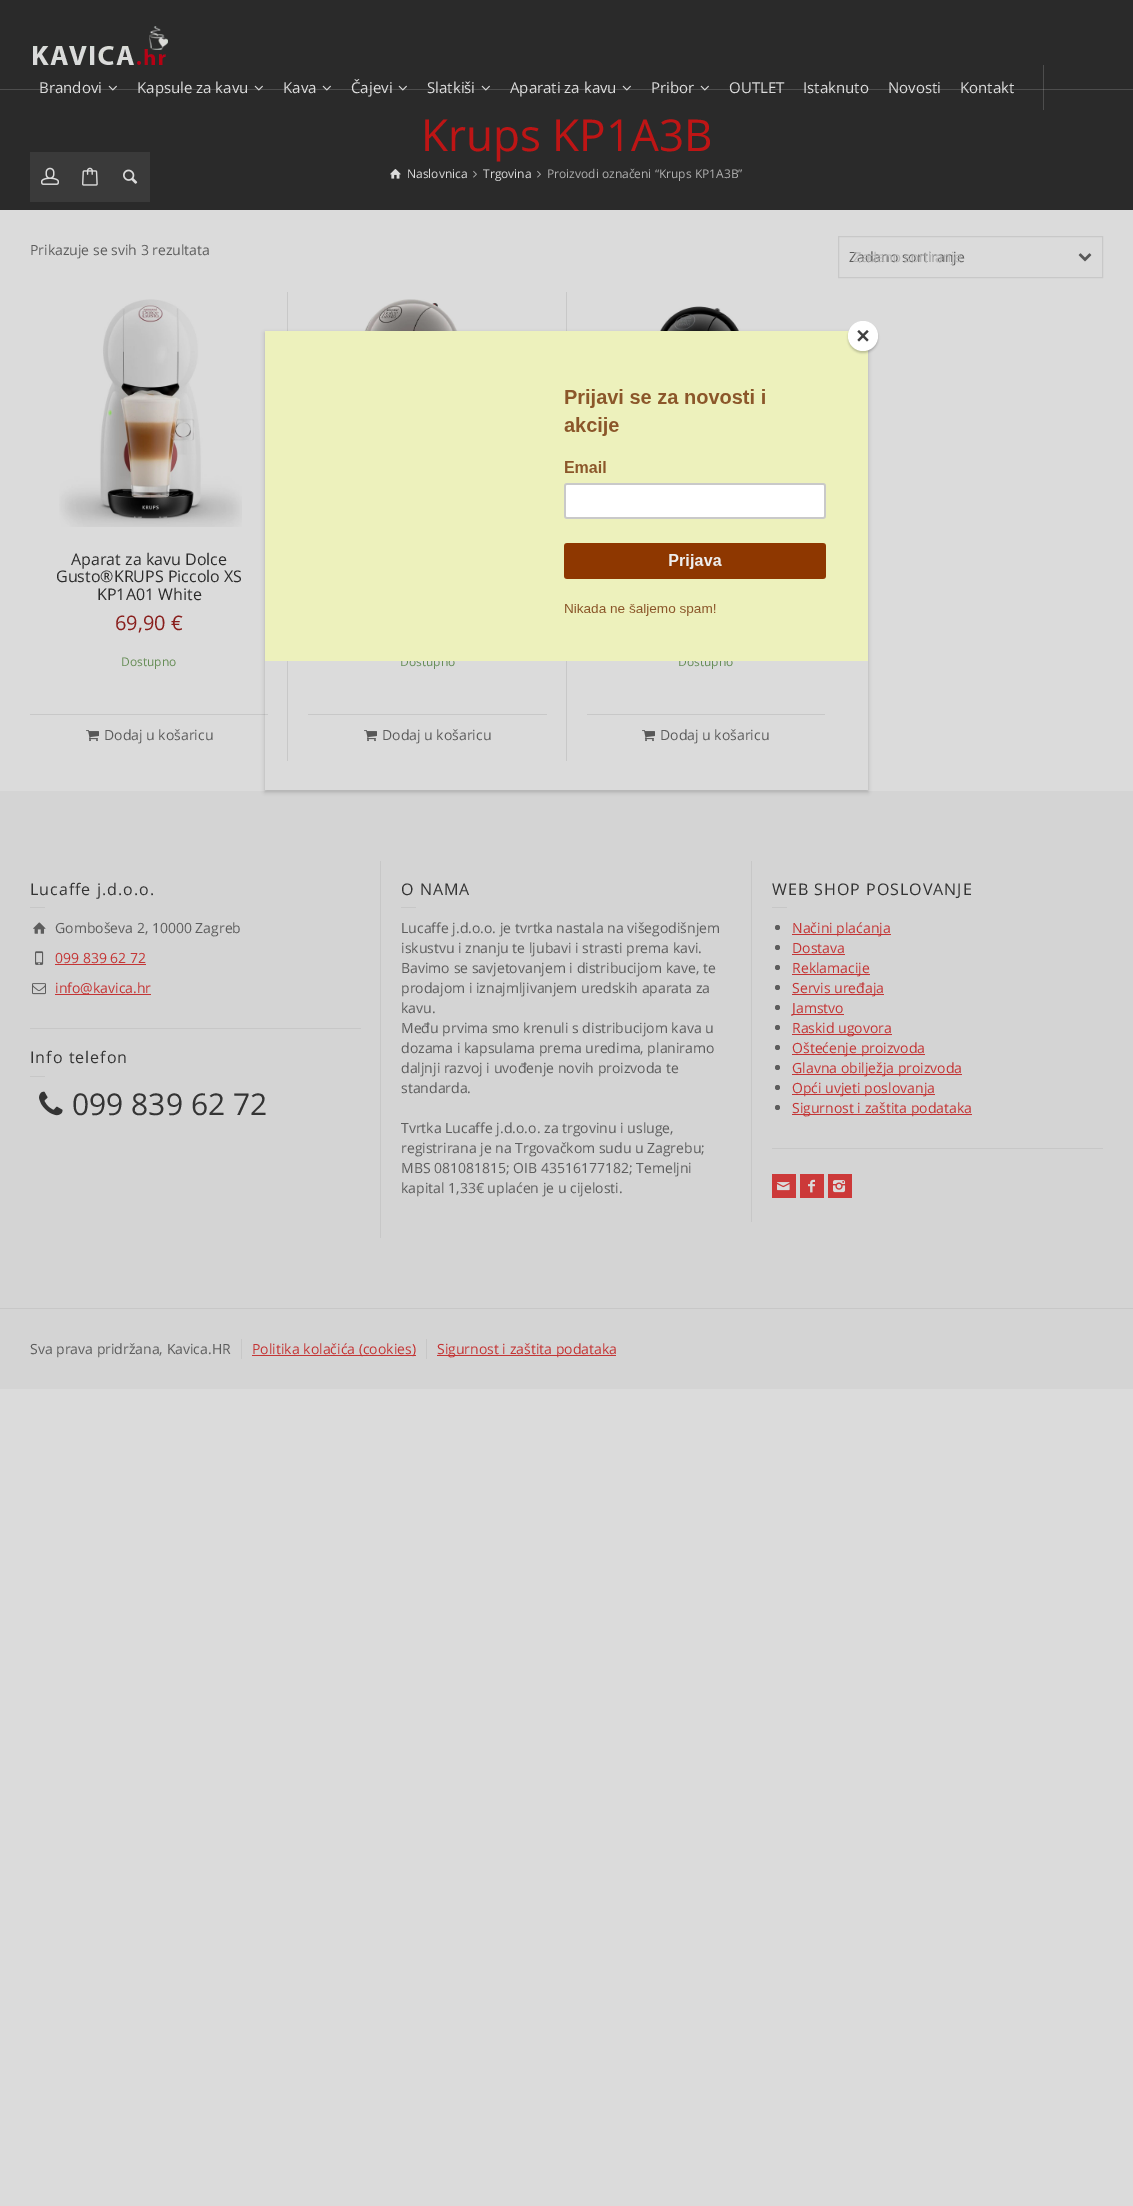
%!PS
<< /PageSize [1133 2206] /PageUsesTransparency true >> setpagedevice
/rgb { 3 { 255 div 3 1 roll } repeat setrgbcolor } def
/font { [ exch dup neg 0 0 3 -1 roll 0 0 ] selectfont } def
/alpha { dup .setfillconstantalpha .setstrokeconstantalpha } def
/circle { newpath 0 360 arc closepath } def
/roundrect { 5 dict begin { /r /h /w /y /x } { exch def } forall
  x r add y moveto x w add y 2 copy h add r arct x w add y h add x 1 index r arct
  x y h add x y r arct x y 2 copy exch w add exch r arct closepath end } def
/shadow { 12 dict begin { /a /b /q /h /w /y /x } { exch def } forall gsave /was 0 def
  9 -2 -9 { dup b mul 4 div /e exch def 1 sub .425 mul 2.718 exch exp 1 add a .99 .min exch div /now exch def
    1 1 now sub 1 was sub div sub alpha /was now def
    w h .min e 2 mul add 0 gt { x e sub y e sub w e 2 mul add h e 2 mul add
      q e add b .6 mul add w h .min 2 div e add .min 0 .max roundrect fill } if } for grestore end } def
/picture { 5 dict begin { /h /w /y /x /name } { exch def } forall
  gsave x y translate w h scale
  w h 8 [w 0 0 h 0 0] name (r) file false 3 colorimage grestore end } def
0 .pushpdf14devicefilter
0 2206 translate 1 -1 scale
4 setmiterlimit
219 219 219 rgb
0 0 1133 2206 rectfill
[
  [0 0 1133 210 42 42 42]
  [1043 65 1 45 77 77 77]
  [0 89 1133 1 77 77 77]
  [1043 89 1 1 106 106 106]
] { aload pop rgb rectfill } forall
(img/1.rgb) 33 26 135 39 picture
(img/2.rgb) 108 85 9 6 picture
(img/2.rgb) 254 85 9 6 picture
(img/2.rgb) 322 85 9 6 picture
(img/2.rgb) 398 85 9 6 picture
(img/2.rgb) 481 85 9 6 picture
(img/2.rgb) 622 85 9 6 picture
(img/2.rgb) 700 85 9 6 picture
58 58 58 rgb
30 152 120 50 rectfill
(img/3.rgb) 41 167 18 18 picture
(img/4.rgb) 82 167 16 19 picture
(img/5.rgb) 123 169 15 15 picture
(img/6.rgb) 390 169 11 10 picture
(img/7.rgb) 473 170 4 8 picture
(img/7.rgb) 537 170 4 8 picture
200 200 200 rgb
838.5 236.5 264 41 rectstroke
(img/8.rgb) 1078 253 14 9 picture
(img/9.rgb) 59 299 183 228 picture
30 714 238 1 rectfill
(img/10.rgb) 86 730 13 12 picture
287 292 1 469 rectfill
(img/11.rgb) 359 299 141 32 picture
308 714 239 1 rectfill
(img/10.rgb) 364 730 13 12 picture
566 292 1 469 rectfill
(img/12.rgb) 634 306 158 25 picture
587 714 238 1 rectfill
(img/10.rgb) 642 730 13 12 picture
212 212 212 rgb
0 791 1133 517 rectfill
199 199 199 rgb
30 907 15 1 rectfill
(img/13.rgb) 33 922 13 12 picture
(img/14.rgb) 35 951 9 14 picture
196 53 53 rgb
55 964 91 1 rectfill
(img/15.rgb) 32 983 14 12 picture
[
  [55 994 96 1 196 53 53]
  [30 1028 331 1 199 199 199]
  [30 1076 15 1 199 199 199]
] { aload pop rgb rectfill } forall
(img/16.rgb) 39 1091 24 25 picture
[
  [380 861 1 377 199 199 199]
  [401 907 15 1 199 199 199]
  [751 861 1 361 199 199 199]
  [772 907 15 1 199 199 199]
] { aload pop rgb rectfill } forall
93 93 93 rgb
777.5 927.5 2.5 circle fill
196 53 53 rgb
792 934 99 1 rectfill
93 93 93 rgb
777.5 947.5 2.5 circle fill
196 53 53 rgb
792 954 53 1 rectfill
93 93 93 rgb
777.5 967.5 2.5 circle fill
196 53 53 rgb
792 974 78 1 rectfill
93 93 93 rgb
777.5 987.5 2.5 circle fill
196 53 53 rgb
792 994 92 1 rectfill
93 93 93 rgb
777.5 1007.5 2.5 circle fill
196 53 53 rgb
792 1014 52 1 rectfill
93 93 93 rgb
777.5 1027.5 2.5 circle fill
196 53 53 rgb
792 1034 100 1 rectfill
93 93 93 rgb
777.5 1047.5 2.5 circle fill
196 53 53 rgb
792 1054 133 1 rectfill
93 93 93 rgb
777.5 1067.5 2.5 circle fill
196 53 53 rgb
792 1074 170 1 rectfill
93 93 93 rgb
777.5 1087.5 2.5 circle fill
196 53 53 rgb
792 1094 143 1 rectfill
93 93 93 rgb
777.5 1107.5 2.5 circle fill
[
  [792 1114 180 1 196 53 53]
  [772 1148 331 1 199 199 199]
  [772 1174 24 24 204 57 57]
] { aload pop rgb rectfill } forall
(img/17.rgb) 777 1182 13 9 picture
800 1174 24 24 rectfill
(img/18.rgb) 808 1179 7 14 picture
828 1174 24 24 rectfill
(img/19.rgb) 833 1180 13 13 picture
[
  [0 1309 1133 80 212 212 212]
  [0 1308 1133 1 199 199 199]
  [241 1339 1 20 199 199 199]
  [252 1355 164 1 196 53 53]
  [426 1339 1 20 199 199 199]
  [437 1355 179 1 196 53 53]
] { aload pop rgb rectfill } forall
gsave
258 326 moveto 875 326 lineto 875 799 lineto 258 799 lineto closepath 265 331 moveto 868 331 lineto 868 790 lineto 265 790 lineto closepath eoclip newpath
0 0 0 rgb
265 333 603 459 0 2 0.2 shadow
grestore
/OpenSans-Regular 15 font
219 219 219 rgb
[
  [(Brandovi) 39 93]
  [(Kapsule za kavu) 137 93]
  [(Kava) 283 93]
  [(Čajevi) 351 93]
  [(Slatkiši) 427 93]
  [(Aparati za kavu) 510 93]
  [(Pribor) 651 93]
  [(OUTLET) 729 93]
  [(Istaknuto) 803 93]
  [(Novosti) 888 93]
  [(Kontakt) 960 93]
] { aload pop moveto show } forall
/OpenSans-Regular 44 font
190 21 21 rgb
421 151 moveto (Krups KP1A3B) show
/OpenSans-Regular 12 font
219 219 219 rgb
407 178 moveto (Naslovnica) show
483 178 moveto (Trgovina) show
175 175 175 rgb
547 178 moveto (Proizvodi označeni “Krups KP1A3B”) show
/OpenSans-Regular 14 font
93 93 93 rgb
30 255 moveto (Prikazuje se svih 3 rezultata) show
849 262 moveto (Zadano sortiranje) show
/LiberationSans-Regular 14 font
181 181 181 rgb
853 262 moveto (Zadano sortiranje) show
/OpenSans-Regular 16 font
44 44 44 rgb
[
  [(Aparat za kavu Dolce) 71 565]
  [(Gusto®KRUPS Piccolo XS) 56 582]
  [(KP1A01 White) 97 600]
] { aload pop moveto show } forall
/OpenSans-Regular 20 font
137 30 28 rgb
115 630 moveto (69,90 €) show
/OpenSans-Regular 12 font
102 141 86 rgb
121 666 moveto (Dostupno) show
/OpenSans-Regular 14 font
93 93 93 rgb
104 740 moveto (Dodaj u košaricu) show
/OpenSans-Regular 12 font
102 141 86 rgb
400 666 moveto (Dostupno) show
/OpenSans-Regular 14 font
93 93 93 rgb
382 740 moveto (Dodaj u košaricu) show
/OpenSans-Regular 12 font
102 141 86 rgb
678 666 moveto (Dostupno) show
/OpenSans-Regular 14 font
93 93 93 rgb
660 740 moveto (Dodaj u košaricu) show
/OpenSans-Regular 16 font
52 52 52 rgb
30 895 moveto 1 0 (Lucaffe j.d.o.o.) ashow
/OpenSans-Regular 14 font
93 93 93 rgb
55 933 moveto (Gomboševa 2, 10000 Zagreb) show
196 53 53 rgb
55 963 moveto (099 839 62 72) show
55 993 moveto (info@kavica.hr) show
/OpenSans-Regular 16 font
52 52 52 rgb
30 1063 moveto 1 0 (Info telefon) ashow
/OpenSans-Regular 30 font
72 1115 moveto (099 839 62 72) show
/OpenSans-Regular 16 font
401 895 moveto 1 0 (O NAMA) ashow
/OpenSans-Regular 14 font
93 93 93 rgb
[
  [(Lucaffe j.d.o.o. je tvrtka nastala na višegodišnjem) 401 933]
  [(iskustvu i znanju te ljubavi i strasti prema kavi.) 401 953]
  [(Bavimo se savjetovanjem i distribucijom kave, te) 401 973]
  [(prodajom i iznajmljivanjem uredskih aparata za) 401 993]
  [(kavu.) 401 1013]
  [(Među prvima smo krenuli s distribucijom kava u) 401 1033]
  [(dozama i kapsulama prema uredima, planiramo) 401 1053]
  [(daljnji razvoj i uvođenje novih proizvoda te) 401 1073]
  [(standarda.) 401 1093]
  [(Tvrtka Lucaffe j.d.o.o. za trgovinu i usluge,) 401 1133]
  [(registrirana je na Trgovačkom sudu u Zagrebu;) 401 1153]
  [(MBS 081081815; OIB 43516177182; Temeljni) 401 1173]
  [(kapital 1,33€ uplaćen je u cijelosti.) 401 1193]
] { aload pop moveto show } forall
/OpenSans-Regular 16 font
52 52 52 rgb
772 895 moveto 1 0 (WEB SHOP POSLOVANJE) ashow
/OpenSans-Regular 14 font
196 53 53 rgb
[
  [(Načini plaćanja) 792 933]
  [(Dostava) 792 953]
  [(Reklamacije) 792 973]
  [(Servis uređaja) 792 993]
  [(Jamstvo) 792 1013]
  [(Raskid ugovora) 792 1033]
  [(Oštećenje proizvoda) 792 1053]
  [(Glavna obilježja proizvoda) 792 1073]
  [(Opći uvjeti poslovanja) 792 1093]
  [(Sigurnost i zaštita podataka) 792 1113]
] { aload pop moveto show } forall
93 93 93 rgb
30 1354 moveto (Sva prava pridržana, Kavica.HR) show
196 53 53 rgb
252 1354 moveto (Politika kolačića \(cookies\)) show
437 1354 moveto (Sigurnost i zaštita podataka) show
(img/20.rgb) 265 331 603 330 picture
0 0 0 rgb
848 323 30 30 15 1 0.2 shadow
255 255 255 rgb
863 336 15 circle fill
65 65 65 rgb
867 330 moveto 868.5 331.5 lineto 859 341.5 lineto 857.5 340 lineto closepath fill
857.5 331.5 moveto 859 330 lineto 868.5 340 lineto 867 341.5 lineto closepath fill
.poppdf14devicefilter showpage
